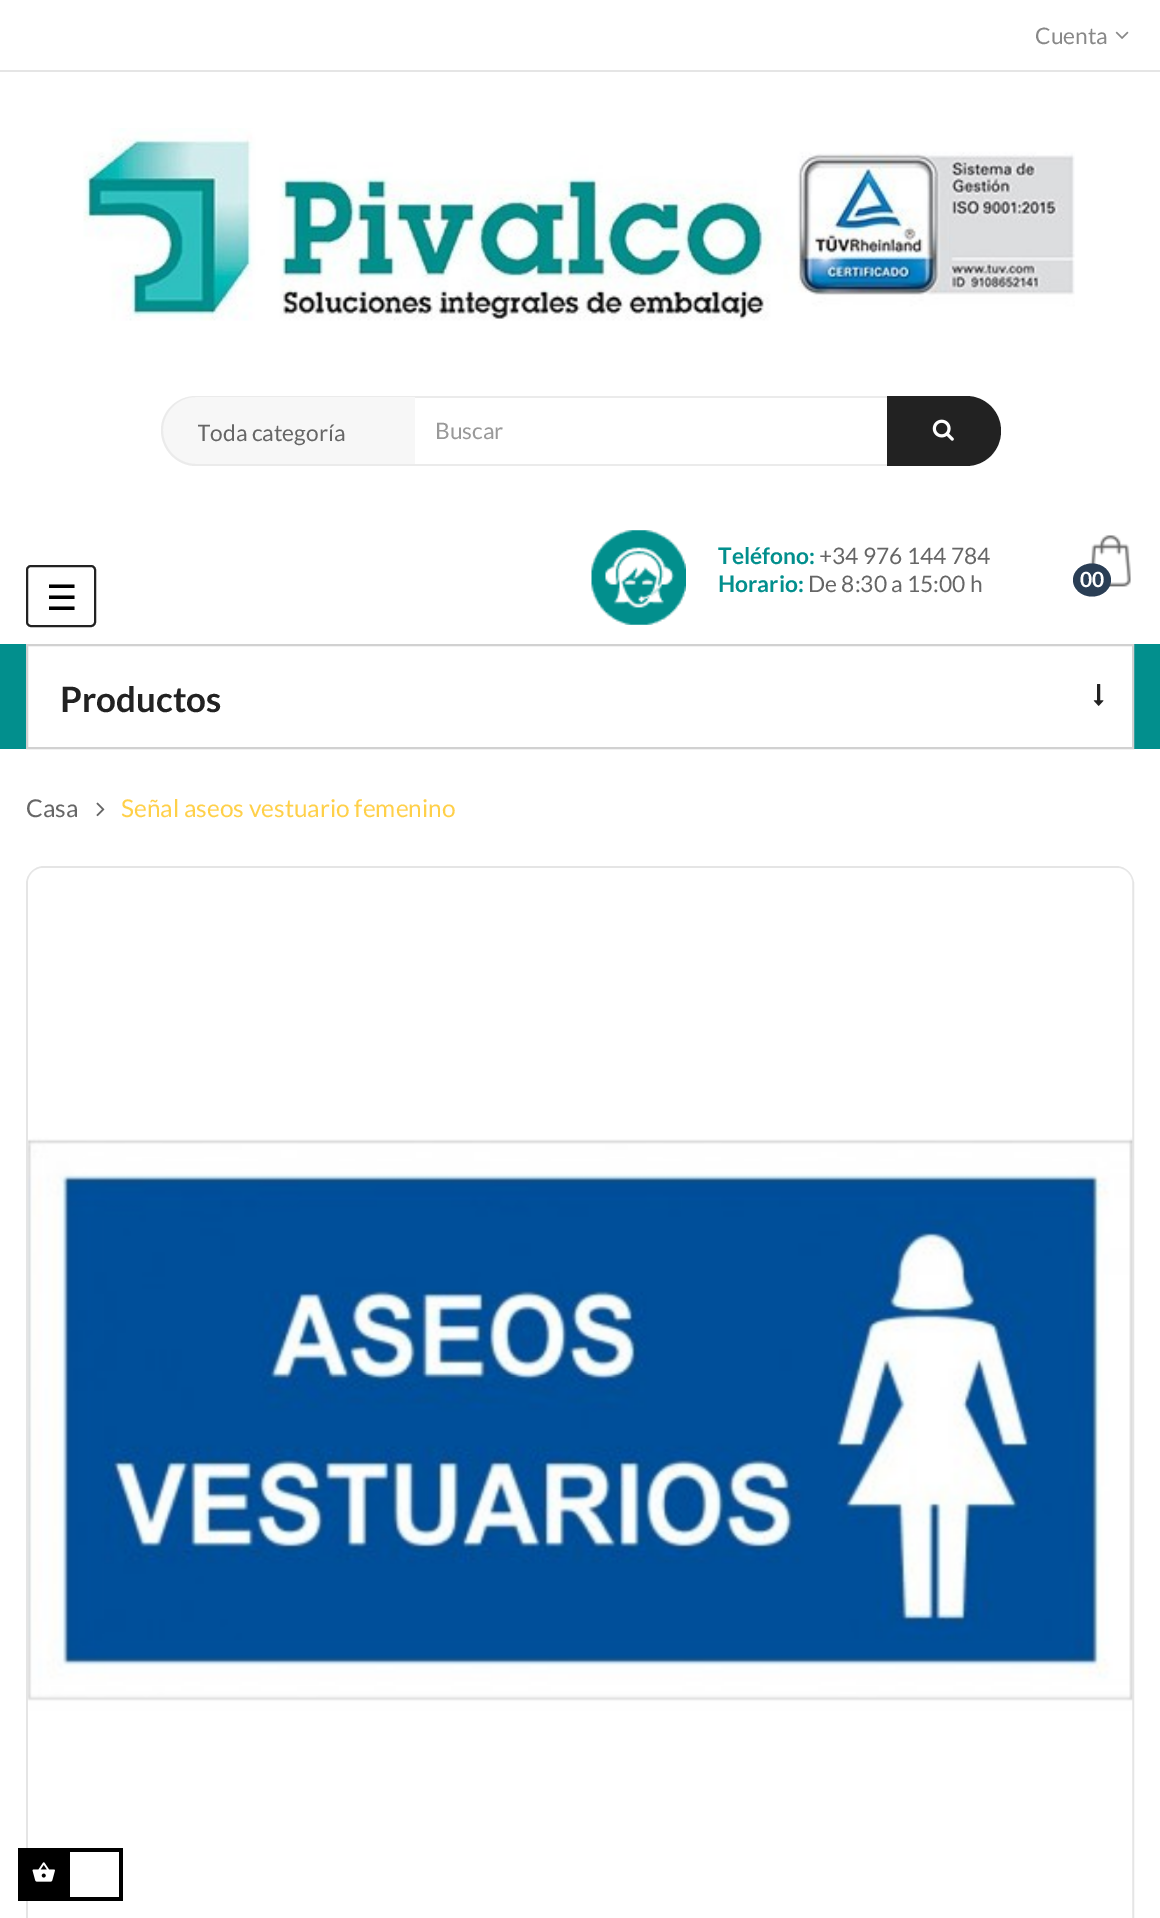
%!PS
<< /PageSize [1160 1918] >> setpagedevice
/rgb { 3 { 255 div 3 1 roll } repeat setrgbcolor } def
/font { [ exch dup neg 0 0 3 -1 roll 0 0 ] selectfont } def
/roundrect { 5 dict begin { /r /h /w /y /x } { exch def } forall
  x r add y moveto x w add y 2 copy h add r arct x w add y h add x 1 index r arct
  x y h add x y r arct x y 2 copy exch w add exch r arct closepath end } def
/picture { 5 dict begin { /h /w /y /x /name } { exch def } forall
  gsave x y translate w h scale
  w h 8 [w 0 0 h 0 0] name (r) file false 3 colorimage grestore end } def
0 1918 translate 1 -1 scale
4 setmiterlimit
255 255 255 rgb
0 0 1160 1918 rectfill
229 229 229 rgb
0 70 1160 2 rectfill
(img/1.rgb) 1115 31 14 8 picture
(img/2.rgb) 83 128 992 193 picture
247 247 247 rgb
196.5 397 moveto 415 397 lineto 415 464 lineto 196.5 464 lineto 178 464 163 449 163 430.5 curveto 163 412 178 397 196.5 397 curveto closepath fill
235 235 235 rgb
196 396 moveto 415 396 lineto 415 466 lineto 196 466 lineto 177 466 161 450 161 430 curveto 161 411 177 396 196 396 curveto closepath 196 397 moveto 415 397 lineto 415 464 lineto 196 464 lineto 178 464 163 449 163 430 curveto 163 412 178 397 196 397 curveto closepath eofill
415 396 472 2 rectfill
415 464 472 2 rectfill
34 34 34 rgb
887 396 moveto 966 396 lineto 985.5 396 1001 411.5 1001 431 curveto 1001 450.5 985.5 466 966 466 curveto 887 466 lineto closepath fill
(img/3.rgb) 932 419 22 22 picture
(img/4.rgb) 591 530 95 95 picture
(img/5.rgb) 1090 535 41 52 picture
42 62 85 rgb
1092 563.5 moveto 1102.5 563.5 1111 571 1111 580 curveto 1111 589 1102.5 596.5 1092 596.5 curveto 1081.5 596.5 1073 589 1073 580 curveto 1073 571 1081.5 563.5 1092 563.5 curveto closepath fill
2 143 141 rgb
0 644 1160 105 rectfill
34 34 34 rgb
2 setlinewidth
27 566 68 60 4 roundrect stroke
255 255 255 rgb
27 645 moveto 1133 645 lineto 1133 748 lineto 27 748 lineto closepath gsave fill grestore
209 209 209 rgb
stroke
(img/6.rgb) 1093 684 11 22 picture
(img/7.rgb) 96 802 9 15 picture
229 229 229 rgb
27 867 1106 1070 17 roundrect stroke
(img/8.rgb) 28 868 1105 1050 picture
0 0 0 rgb
18 1848 105 53 rectfill
(img/9.rgb) 32 1862 23 20 picture
255 255 255 rgb
70 1852 49 45 rectfill
/Lato-Regular 22.75 font
136 136 136 rgb
1035 44 moveto (Cuenta) show
gsave
198 397 173 70 rectclip
102 102 102 rgb
197 441 moveto (Toda categoría) show
grestore
153 153 153 rgb
435 439 moveto (Buscar) show
/Lato-Bold 22.75 font
2 143 141 rgb
718 564 moveto (Teléfono:) show
/Lato-Regular 22.75 font
102 102 102 rgb
819 564 moveto (+34 976 144 784) show
/Lato-Bold 22.75 font
2 143 141 rgb
718 592 moveto (Horario:) show
/Lato-Regular 22.75 font
102 102 102 rgb
808 592 moveto (De 8:30 a 15:00 h) show
/Lato-Bold 21 font
255 255 255 rgb
1080 587 moveto (00) show
/DejaVuSans-Regular 35 font
0 0 0 rgb
46 610 moveto (☰) show
/Lato-Bold 35 font
34 34 34 rgb
60 712 moveto (Productos) show
/Lato-Regular 24.5 font
102 102 102 rgb
26 817 moveto (Casa) show
255 208 73 rgb
121 817 moveto (Señal aseos vestuario femenino) show
showpage
